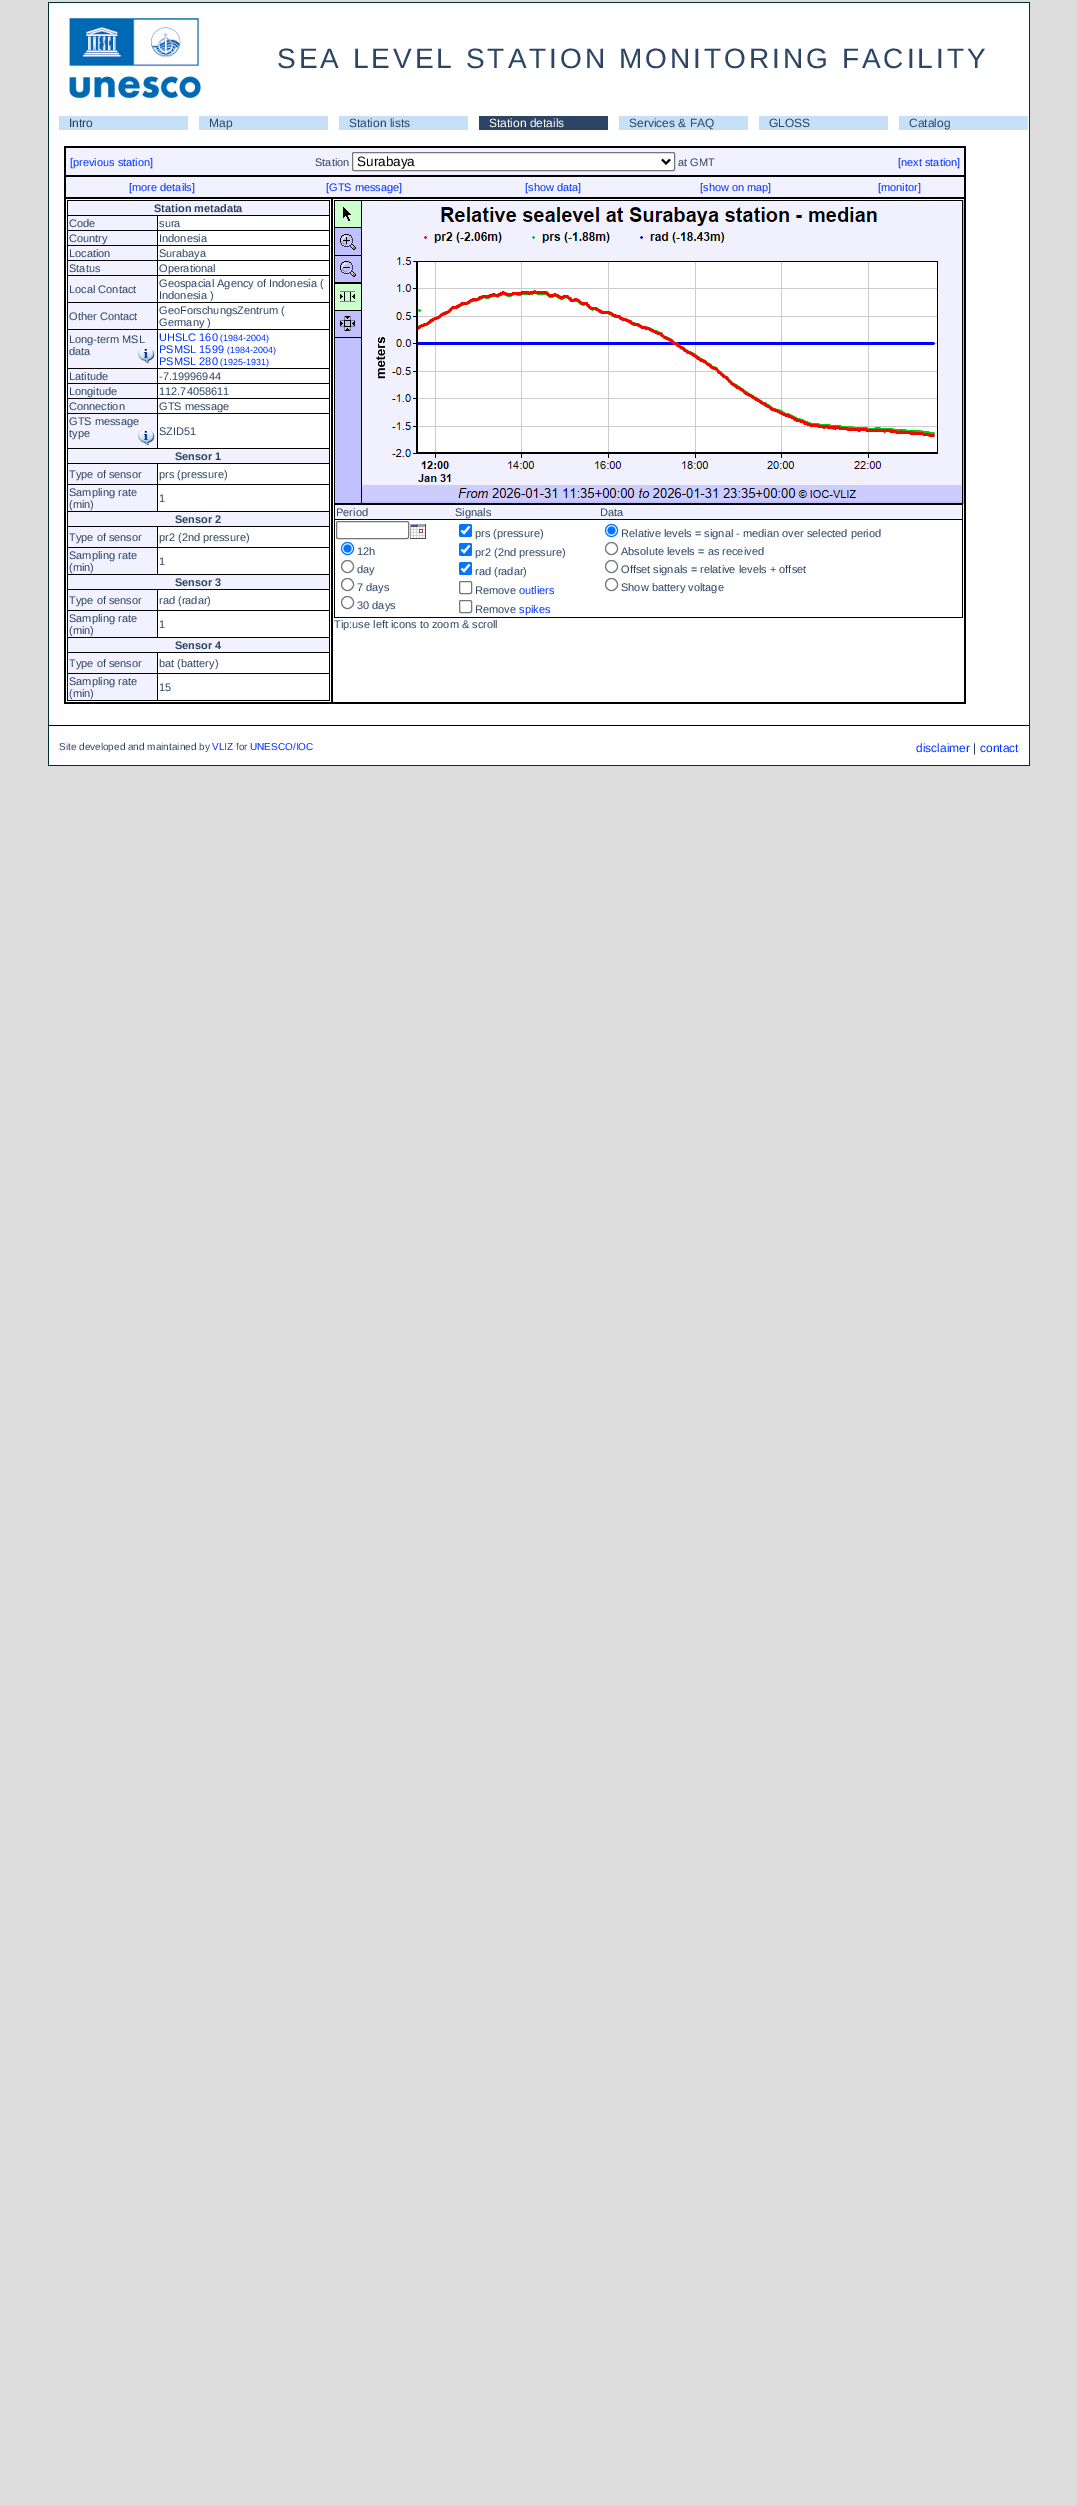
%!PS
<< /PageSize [1077 2506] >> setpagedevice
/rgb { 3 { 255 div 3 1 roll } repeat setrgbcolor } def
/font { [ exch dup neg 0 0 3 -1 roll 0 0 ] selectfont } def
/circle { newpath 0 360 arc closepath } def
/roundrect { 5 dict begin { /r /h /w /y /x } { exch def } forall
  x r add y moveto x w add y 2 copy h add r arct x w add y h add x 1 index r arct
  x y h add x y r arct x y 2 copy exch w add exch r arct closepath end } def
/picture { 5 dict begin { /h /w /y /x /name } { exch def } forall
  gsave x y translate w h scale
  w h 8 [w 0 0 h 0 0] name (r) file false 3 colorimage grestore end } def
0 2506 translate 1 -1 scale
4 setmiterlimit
220 220 220 rgb
0 0 1077 2506 rectfill
0 47 47 rgb
48 2 982 764 rectfill
255 255 255 rgb
49 3 980 762 rectfill
(img/1.rgb) 69 18 132 81 picture
[
  [59 116 129 14 197 224 247]
  [199 116 129 14 197 224 247]
  [339 116 129 14 197 224 247]
  [479 116 129 14 45 69 100]
  [619 116 129 14 197 224 247]
  [759 116 129 14 197 224 247]
  [899 116 129 14 197 224 247]
  [64 146 902 558 0 0 0]
  [66 148 898 27 241 241 255]
] { aload pop rgb rectfill } forall
255 255 255 rgb
352.5 152.5 322 18 1.5 roundrect gsave fill grestore
118 118 118 rgb
stroke
0 0 0 rgb
2 setlinewidth
662 159.5 moveto 666 163.5 lineto 670 159.5 lineto stroke
[
  [66 177 898 20 241 241 255]
  [66 199 265 503 255 255 255]
  [67 200 263 501 0 0 0]
  [68 201 261 14 241 241 255]
  [68 216 89 14 241 241 255]
  [158 216 171 14 255 255 255]
  [68 231 89 14 241 241 255]
  [158 231 171 14 255 255 255]
  [68 246 89 14 241 241 255]
  [158 246 171 14 255 255 255]
  [68 261 89 14 241 241 255]
  [158 261 171 14 255 255 255]
  [68 276 89 26 241 241 255]
  [158 276 171 26 255 255 255]
  [68 303 89 26 241 241 255]
  [158 303 171 26 255 255 255]
  [68 330 89 38 241 241 255]
] { aload pop rgb rectfill } forall
(img/2.rgb) 138 347 17 17 picture
[
  [158 330 171 38 255 255 255]
  [68 369 89 14 241 241 255]
  [158 369 171 14 255 255 255]
  [68 384 89 14 241 241 255]
  [158 384 171 14 255 255 255]
  [68 399 89 14 241 241 255]
  [158 399 171 14 255 255 255]
  [68 414 89 34 241 241 255]
] { aload pop rgb rectfill } forall
(img/2.rgb) 138 429 17 17 picture
[
  [158 414 171 34 255 255 255]
  [68 449 261 14 241 241 255]
  [68 464 89 20 241 241 255]
  [158 464 171 20 255 255 255]
  [68 485 89 26 241 241 255]
  [158 485 171 26 255 255 255]
  [68 512 261 14 241 241 255]
  [68 527 89 20 241 241 255]
  [158 527 171 20 255 255 255]
  [68 548 89 26 241 241 255]
  [158 548 171 26 255 255 255]
  [68 575 261 14 241 241 255]
  [68 590 89 20 241 241 255]
  [158 590 171 20 255 255 255]
  [68 611 89 26 241 241 255]
  [158 611 171 26 255 255 255]
  [68 638 261 14 241 241 255]
  [68 653 89 20 241 241 255]
  [158 653 171 20 255 255 255]
  [68 674 89 26 241 241 255]
  [158 674 171 26 255 255 255]
  [333 199 631 503 255 255 255]
] { aload pop rgb rectfill } forall
0 0 0 rgb
1 setlinewidth
334.5 200.5 628 303 rectstroke
[
  [335 228 26 275 192 192 255]
  [361 201 1 302 0 0 0]
  [335 227 26 1 0 0 0]
  [335 201 26 26 204 255 204]
] { aload pop rgb rectfill } forall
(img/3.rgb) 343 207 8 14 picture
0 0 0 rgb
335 255 26 1 rectfill
(img/4.rgb) 340 234 16 16 picture
335 282 26 2 rectfill
(img/5.rgb) 340 261 16 16 picture
335 310 26 1 rectfill
204 255 204 rgb
335 284 26 26 rectfill
(img/6.rgb) 340 291 15 11 picture
0 0 0 rgb
335 337 26 1 rectfill
(img/7.rgb) 340 316 15 15 picture
192 192 255 rgb
362 501 600 2 rectfill
(img/8.rgb) 362 201 600 300 picture
[
  [334 504 629 114 0 0 0]
  [335 505 627 14 241 241 255]
  [335 520 627 97 255 255 255]
] { aload pop rgb rectfill } forall
118 118 118 rgb
336.5 521.5 72 17 1.5 roundrect stroke
(img/9.rgb) 410 524 16 15 picture
0 117 255 rgb
347.5 548.5 6 circle stroke
347.5 548.5 4 circle fill
118 118 118 rgb
347.5 566.5 6 circle stroke
347.5 584.5 6 circle stroke
347.5 602.5 6 circle stroke
0 117 255 rgb
459 524 13 13 2 roundrect fill
255 255 255 rgb
2.1 setlinewidth
461.5 530.5 moveto 464 533 lineto 469.5 526.5 lineto stroke
0 117 255 rgb
459 543 13 13 2 roundrect fill
255 255 255 rgb
461.5 549.5 moveto 464 552 lineto 469.5 545.5 lineto stroke
0 117 255 rgb
459 562 13 13 2 roundrect fill
255 255 255 rgb
461.5 568.5 moveto 464 571 lineto 469.5 564.5 lineto stroke
118 118 118 rgb
1 setlinewidth
459.5 581.5 12 12 1.5 roundrect stroke
459.5 600.5 12 12 1.5 roundrect stroke
0 117 255 rgb
611.5 530.5 6 circle stroke
611.5 530.5 4 circle fill
118 118 118 rgb
611.5 548.5 6 circle stroke
611.5 566.5 6 circle stroke
611.5 584.5 6 circle stroke
0 0 0 rgb
49 725 980 1 rectfill
/LiberationSans-Regular 28 font
45 69 100 rgb
277 68 moveto 3 0 (SEA LEVEL STATION MONITORING FACILITY) ashow
/LiberationSans-Regular 12 font
[
  [(Intro) 69 127]
  [(Map) 209 127]
  [(Station lists) 349 127]
] { aload pop moveto show } forall
255 255 255 rgb
489 127 moveto (Station details) show
45 69 100 rgb
[
  [(Services & FAQ) 629 127]
  [(GLOSS) 769 127]
  [(Catalog) 909 127]
] { aload pop moveto show } forall
/LiberationSans-Regular 11 font
0 51 255 rgb
70 166 moveto ([previous station]) show
45 69 100 rgb
315 166 moveto (Station) show
/LiberationSans-Regular 13.5 font
0 0 0 rgb
357 166 moveto (Surabaya) show
/LiberationSans-Regular 11 font
45 69 100 rgb
678 166 moveto (at GMT) show
0 51 255 rgb
[
  [([next station]) 898 166]
  [([more details]) 129 191]
  [([GTS message]) 326 191]
  [([show data]) 525 191]
  [([show on map]) 700 191]
  [([monitor]) 878 191]
] { aload pop moveto show } forall
/LiberationSans-Bold 11 font
45 69 100 rgb
154 212 moveto (Station metadata) show
/LiberationSans-Regular 11 font
[
  [(Code) 69 227]
  [(sura) 159 227]
  [(Country) 69 242]
  [(Indonesia) 159 242]
  [(Location) 69 257]
  [(Surabaya) 159 257]
  [(Status) 69 272]
  [(Operational) 159 272]
  [(Local Contact) 69 293]
  [(Geospacial Agency of Indonesia \() 159 287]
  [(Indonesia \)) 159 299]
  [(Other Contact) 69 320]
  [(GeoForschungsZentrum \() 159 314]
  [(Germany \)) 159 326]
  [(Long-term MSL) 69 343]
  [(data) 69 355]
] { aload pop moveto show } forall
0 51 255 rgb
159 341 moveto (UHSLC 160) show
/LiberationSans-Regular 9 font
220 341 moveto (\(1984-2004\)) show
/LiberationSans-Regular 11 font
159 353 moveto (PSMSL 1599) show
/LiberationSans-Regular 9 font
227 353 moveto (\(1984-2004\)) show
/LiberationSans-Regular 11 font
159 365 moveto (PSMSL 280) show
/LiberationSans-Regular 9 font
220 365 moveto (\(1925-1931\)) show
/LiberationSans-Regular 11 font
45 69 100 rgb
[
  [(Latitude) 69 380]
  [(-7.19996944) 159 380]
  [(Longitude) 69 395]
  [(112.74058611) 159 395]
  [(Connection) 69 410]
  [(GTS message) 159 410]
  [(GTS message) 69 425]
  [(type) 69 437]
  [(SZID51) 159 435]
] { aload pop moveto show } forall
/LiberationSans-Bold 11 font
175 460 moveto (Sensor 1) show
/LiberationSans-Regular 11 font
[
  [(Type of sensor) 69 478]
  [(prs \(pressure\)) 159 478]
  [(Sampling rate) 69 496]
  [(\(min\)) 69 508]
  [(1) 159 502]
] { aload pop moveto show } forall
/LiberationSans-Bold 11 font
175 523 moveto (Sensor 2) show
/LiberationSans-Regular 11 font
[
  [(Type of sensor) 69 541]
  [(pr2 \(2nd pressure\)) 159 541]
  [(Sampling rate) 69 559]
  [(\(min\)) 69 571]
  [(1) 159 565]
] { aload pop moveto show } forall
/LiberationSans-Bold 11 font
175 586 moveto (Sensor 3) show
/LiberationSans-Regular 11 font
[
  [(Type of sensor) 69 604]
  [(rad \(radar\)) 159 604]
  [(Sampling rate) 69 622]
  [(\(min\)) 69 634]
  [(1) 159 628]
] { aload pop moveto show } forall
/LiberationSans-Bold 11 font
175 649 moveto (Sensor 4) show
/LiberationSans-Regular 11 font
[
  [(Type of sensor) 69 667]
  [(bat \(battery\)) 159 667]
  [(Sampling rate) 69 685]
  [(\(min\)) 69 697]
  [(15) 159 691]
  [(Period) 336 516]
  [(Signals) 455 516]
  [(Data) 600 516]
  [(12h) 357 555]
  [(day) 357 573]
  [(7 days) 357 591]
  [(30 days) 357 609]
  [(prs \(pressure\)) 475 537]
  [(pr2 \(2nd pressure\)) 475 556]
  [(rad \(radar\)) 475 575]
  [(Remove) 475 594]
] { aload pop moveto show } forall
0 51 255 rgb
519 594 moveto (outliers) show
45 69 100 rgb
475 613 moveto (Remove) show
0 51 255 rgb
519 613 moveto (spikes) show
45 69 100 rgb
[
  [(Relative levels = signal - median over selected period) 621 537]
  [(Absolute levels = as received) 621 555]
  [(Offset signals = relative levels + offset) 621 573]
  [(Show battery voltage) 621 591]
  [(Tip:use left icons to zoom & scroll) 334 628]
] { aload pop moveto show } forall
/LiberationSans-Regular 10 font
59 750 moveto (Site developed and maintained by) show
0 51 255 rgb
212 750 moveto (VLIZ) show
45 69 100 rgb
236 750 moveto (for) show
0 51 255 rgb
250 750 moveto (UNESCO/IOC) show
/LiberationSans-Regular 12 font
916 752 moveto (disclaimer) show
45 69 100 rgb
973 752 moveto (|) show
0 51 255 rgb
980 752 moveto (contact) show
showpage
